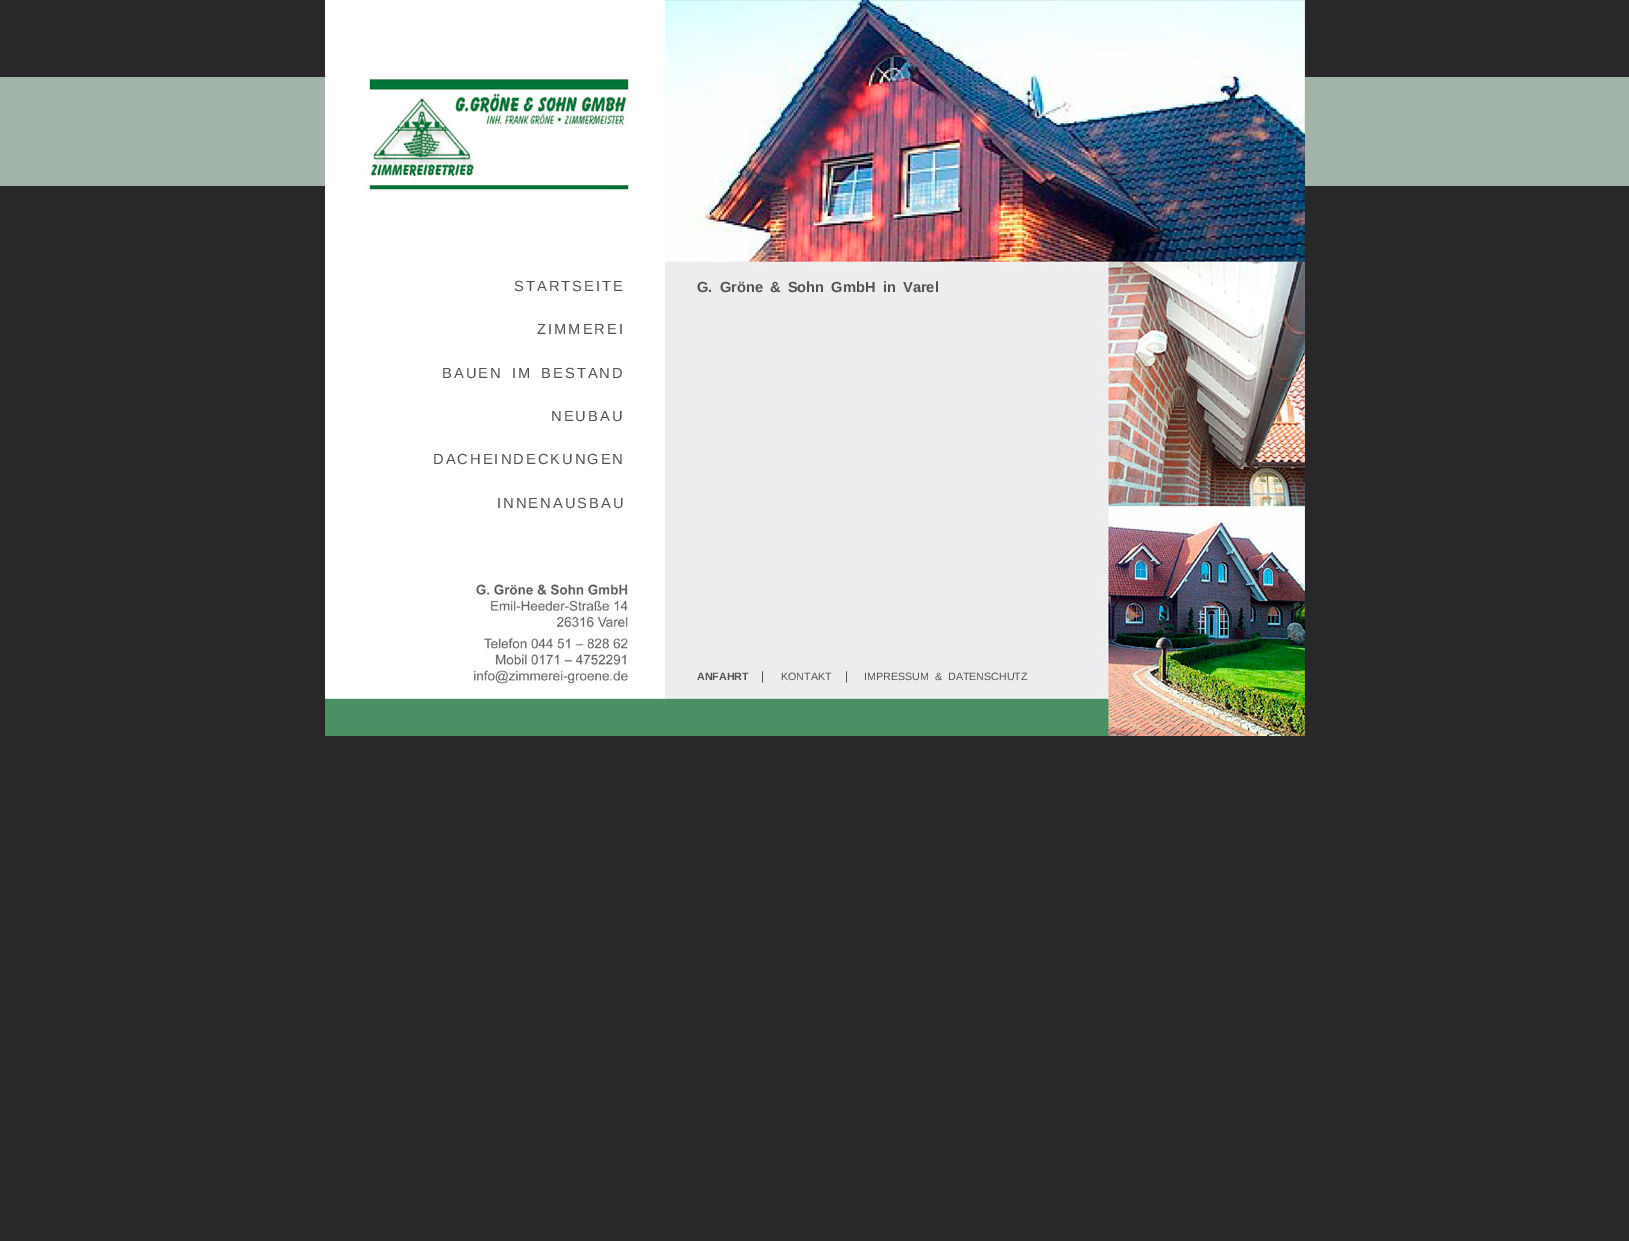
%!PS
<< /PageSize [1629 1241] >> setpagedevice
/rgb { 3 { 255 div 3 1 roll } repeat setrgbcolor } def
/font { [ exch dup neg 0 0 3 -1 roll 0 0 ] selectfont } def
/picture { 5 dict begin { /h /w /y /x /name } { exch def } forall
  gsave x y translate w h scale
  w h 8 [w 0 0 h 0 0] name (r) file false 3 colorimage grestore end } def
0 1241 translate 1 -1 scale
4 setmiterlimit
255 255 255 rgb
0 0 1629 1241 rectfill
(img/1.rgb) 0 0 1629 1241 picture
(img/2.rgb) 325 0 980 262 picture
(img/3.rgb) 325 262 980 434 picture
(img/4.rgb) 325 696 980 40 picture
/LiberationSans-Regular 14.7 font
80 81 83 rgb
514 291 moveto 2 0 (STARTSEITE) ashow
537 334 moveto 2 0 (ZIMMEREI) ashow
442 378 moveto 3 0 32 2 0 (BAUEN IM BESTAND) awidthshow
551 421 moveto 2 0 (NEUBAU) ashow
433 464 moveto 2 0 (DACHEINDECKUNGEN) ashow
497 508 moveto 2 0 (INNENAUSBAU) ashow
/LiberationSans-Bold 14.7 font
697 292 moveto 3 0 32 (G. Gröne & Sohn GmbH in Varel) widthshow
/LiberationSans-Bold 10.7 font
697 680 moveto (ANFAHRT) show
/LiberationSans-Regular 12 font
761 680 moveto (|) show
/LiberationSans-Regular 10.7 font
781 680 moveto (KONTAKT) show
/LiberationSans-Regular 12 font
845 680 moveto (|) show
/LiberationSans-Regular 10.7 font
864 680 moveto 3 0 32 (IMPRESSUM & DATENSCHUTZ) widthshow
showpage
